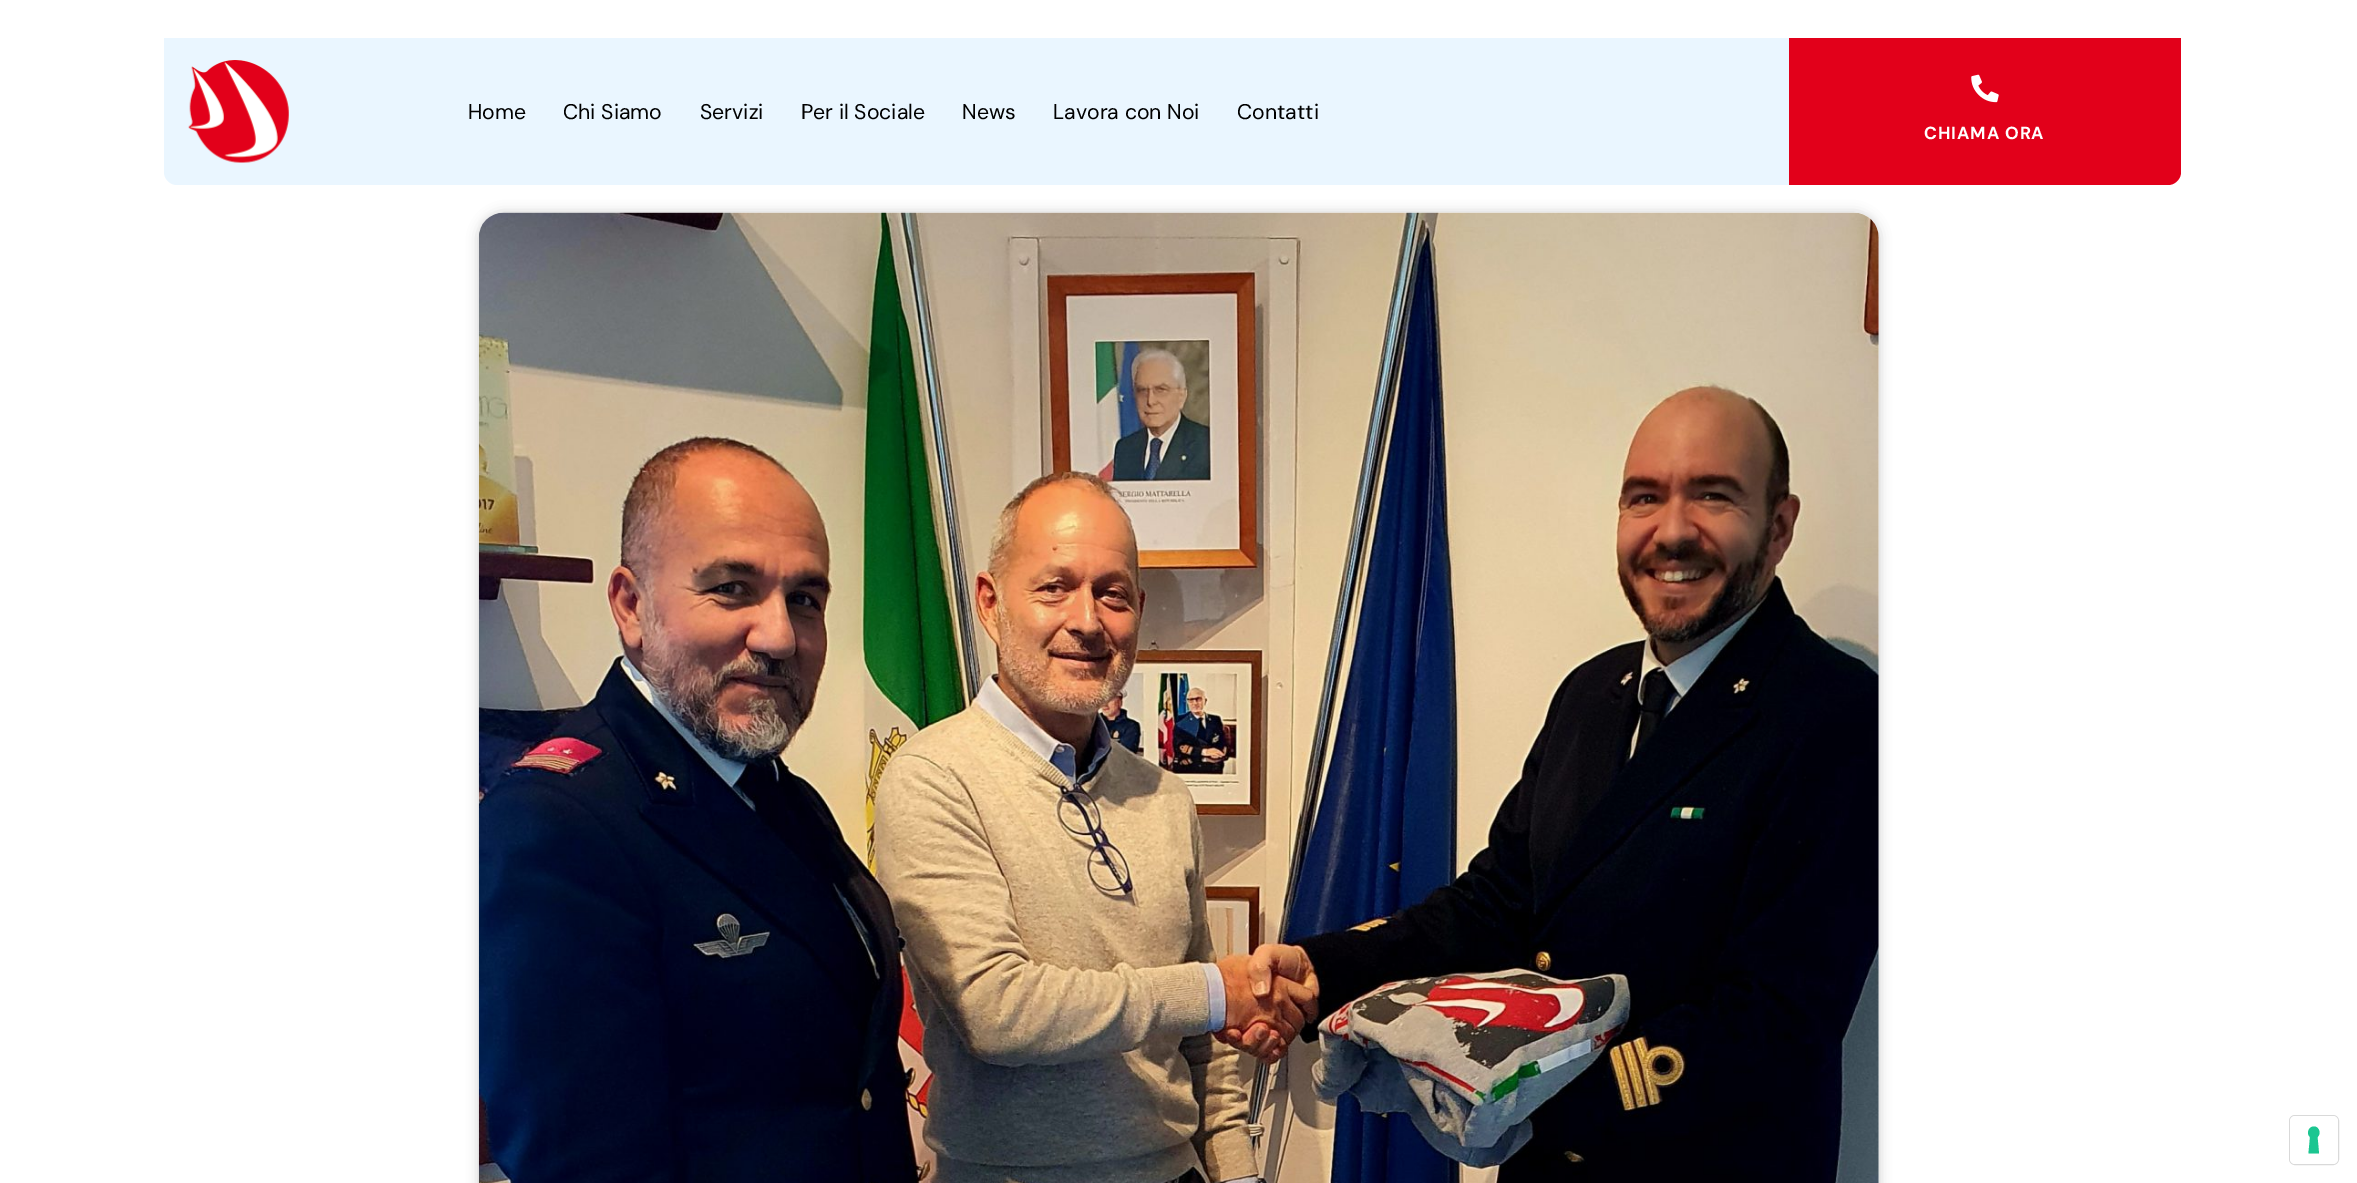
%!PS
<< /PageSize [2357 1183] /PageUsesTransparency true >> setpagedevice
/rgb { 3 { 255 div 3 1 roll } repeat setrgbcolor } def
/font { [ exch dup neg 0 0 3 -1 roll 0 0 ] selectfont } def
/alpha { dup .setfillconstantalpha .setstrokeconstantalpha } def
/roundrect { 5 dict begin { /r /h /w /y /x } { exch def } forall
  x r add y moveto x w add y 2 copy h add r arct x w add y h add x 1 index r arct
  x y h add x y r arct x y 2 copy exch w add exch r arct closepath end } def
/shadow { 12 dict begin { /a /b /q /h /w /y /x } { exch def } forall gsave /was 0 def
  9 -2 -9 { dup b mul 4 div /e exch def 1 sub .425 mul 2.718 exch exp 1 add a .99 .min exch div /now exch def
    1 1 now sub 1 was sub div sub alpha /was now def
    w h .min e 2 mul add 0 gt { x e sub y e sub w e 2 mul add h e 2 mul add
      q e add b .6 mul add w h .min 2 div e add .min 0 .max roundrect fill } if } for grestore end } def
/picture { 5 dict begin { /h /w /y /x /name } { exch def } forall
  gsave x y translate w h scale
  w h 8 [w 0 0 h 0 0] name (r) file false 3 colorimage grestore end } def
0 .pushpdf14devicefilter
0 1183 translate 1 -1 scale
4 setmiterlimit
255 255 255 rgb
0 0 2357 1183 rectfill
234 246 255 rgb
164 38 moveto 468 38 lineto 468 185 lineto 177 185 lineto 170 185 164 179 164 172 curveto closepath fill
(img/1.rgb) 188 60 101 103 picture
468 38 1321 147 rectfill
226 0 26 rgb
1789 38 moveto 2181 38 lineto 2181 172 lineto 2181 179 2175 185 2168 185 curveto 1789 185 lineto closepath fill
(img/2.rgb) 1971 74 28 29 picture
0 0 0 rgb
479 213 1400 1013 25 6 0.2 shadow
(img/3.rgb) 478 212 1401 971 picture
217 217 217 rgb
2289.5 1115.5 49 49 5.5 roundrect stroke
255 255 255 rgb
2290 1116 48 48 5 roundrect fill
28 198 145 rgb
2314 1126.5 moveto 2319 1126.5 2321.5 1133.5 2317.5 1137 curveto 2319 1153.5 lineto 2308.5 1153.5 lineto 2310 1137 lineto 2306 1133.5 2308.5 1126.5 2314 1126.5 curveto closepath eofill
/DMSans-Regular 21.25 font
0 0 0 rgb
[
  [(Home) 468 119]
  [(Chi Siamo) 563 119]
  [(Servizi) 700 119]
  [(Per il Sociale) 801 119]
  [(News) 962 119]
  [(Lavora con Noi) 1053 119]
  [(Contatti) 1237 119]
] { aload pop moveto show } forall
/DMSans-Bold 17.5 font
255 255 255 rgb
1924 139 moveto 0.9 0 (CHIAMA ORA) ashow
.poppdf14devicefilter showpage
